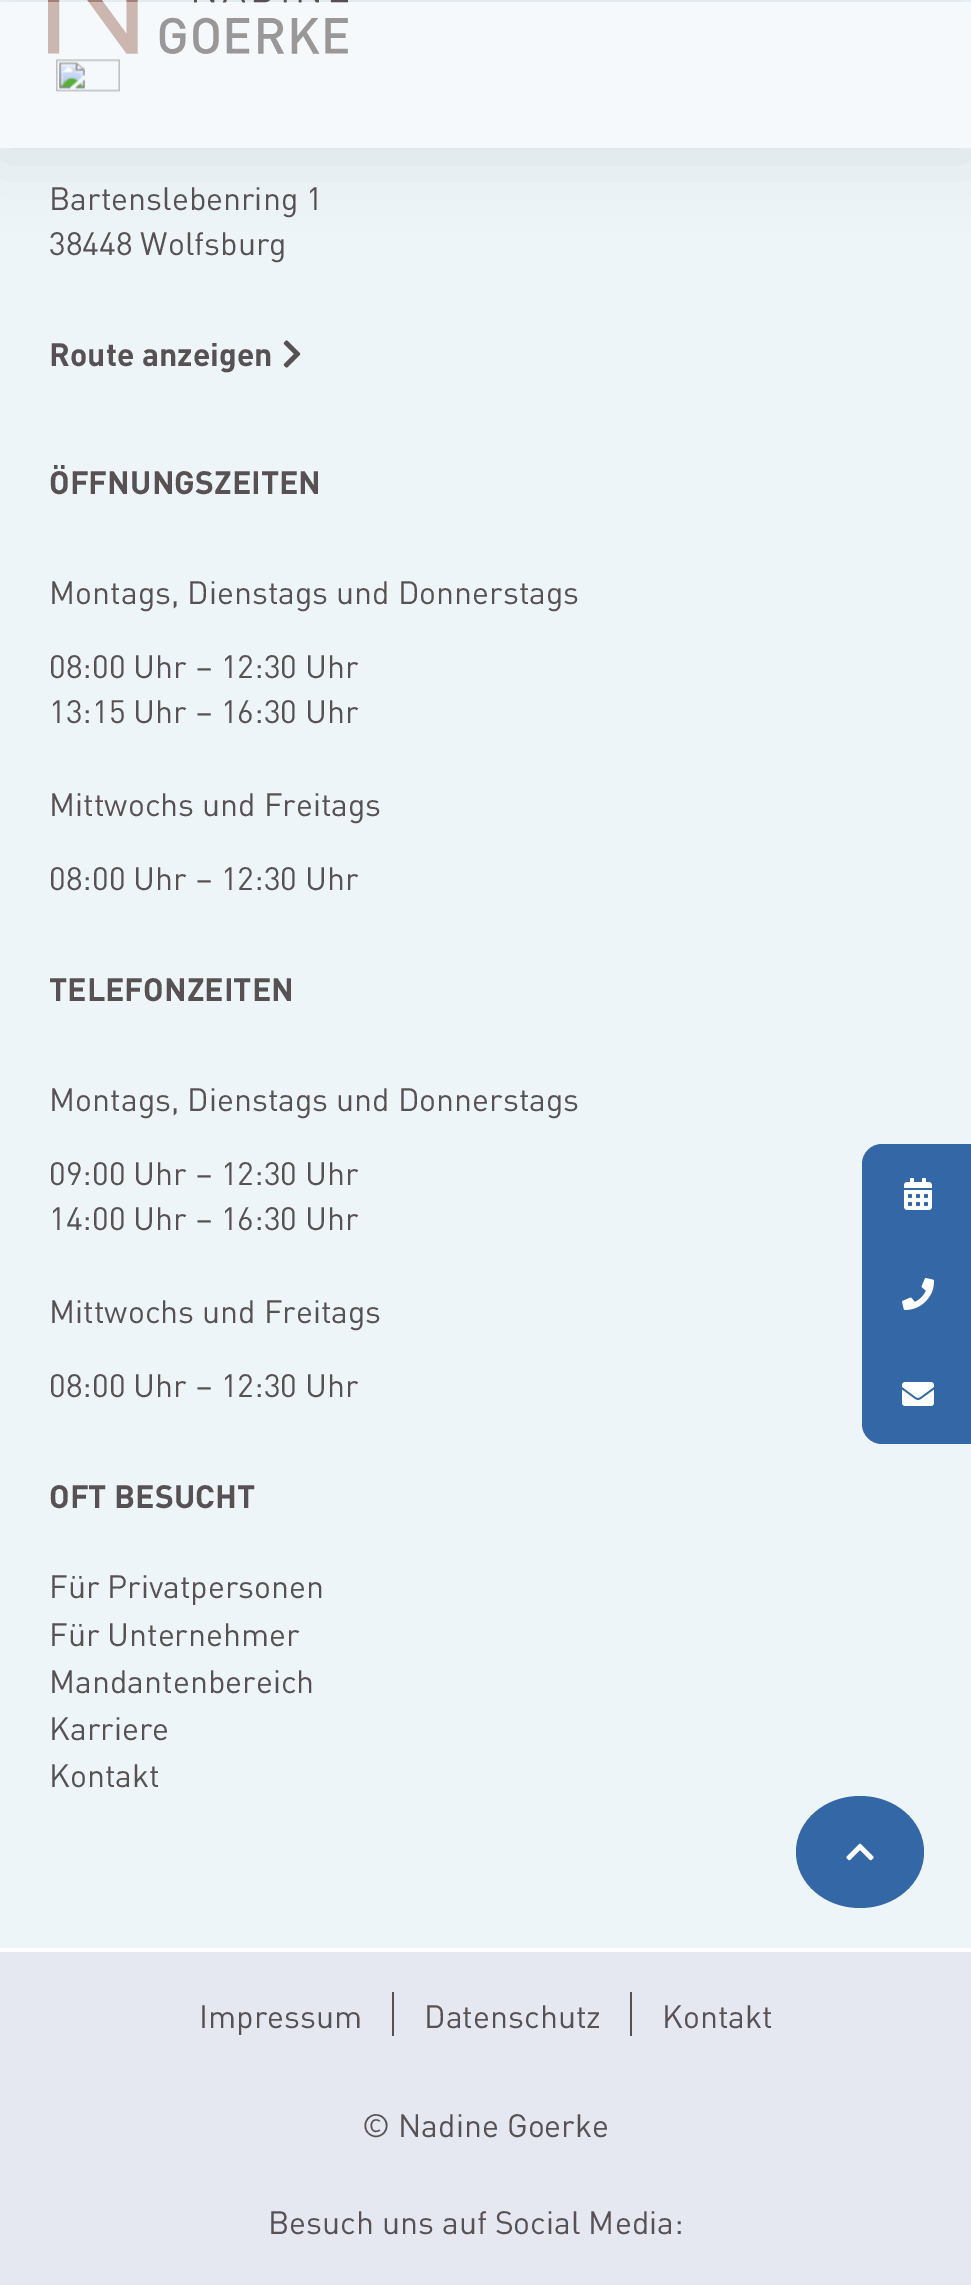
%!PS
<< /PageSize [971 2285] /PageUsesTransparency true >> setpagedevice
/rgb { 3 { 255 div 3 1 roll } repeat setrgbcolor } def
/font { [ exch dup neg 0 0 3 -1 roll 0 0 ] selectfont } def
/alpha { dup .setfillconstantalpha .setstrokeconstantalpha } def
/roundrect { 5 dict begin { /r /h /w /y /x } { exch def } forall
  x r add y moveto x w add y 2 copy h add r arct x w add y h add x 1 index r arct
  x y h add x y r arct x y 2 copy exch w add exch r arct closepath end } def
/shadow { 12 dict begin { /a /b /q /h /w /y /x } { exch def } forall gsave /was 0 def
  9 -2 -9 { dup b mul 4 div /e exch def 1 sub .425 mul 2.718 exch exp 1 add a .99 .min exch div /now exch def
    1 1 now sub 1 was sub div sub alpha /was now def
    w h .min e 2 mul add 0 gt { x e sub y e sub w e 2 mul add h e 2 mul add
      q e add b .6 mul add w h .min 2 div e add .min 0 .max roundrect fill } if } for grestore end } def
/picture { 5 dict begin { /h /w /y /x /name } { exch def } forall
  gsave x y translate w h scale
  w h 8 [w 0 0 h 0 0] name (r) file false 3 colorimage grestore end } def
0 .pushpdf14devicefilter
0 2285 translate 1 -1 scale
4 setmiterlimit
255 255 255 rgb
0 0 971 2285 rectfill
238 245 248 rgb
0 0 971 1948 rectfill
245 249 251 rgb
0 2 971 146 rectfill
(img/2.rgb) 48 0 300 54 picture
gsave
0 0 moveto 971 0 lineto 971 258 lineto 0 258 lineto closepath 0 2 moveto 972 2 lineto 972 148 lineto 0 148 lineto closepath eoclip newpath
0 0 0 rgb
-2 8 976 150 0 33 0.07 shadow
grestore
(img/1.rgb) 56 59 64 33 picture
(img/3.rgb) 283 340 18 28 picture
52 103 165 rgb
860 1796 moveto 895.5 1796 924 1821 924 1852 curveto 924 1883 895.5 1908 860 1908 curveto 824.5 1908 796 1883 796 1852 curveto 796 1821 824.5 1796 860 1796 curveto closepath fill
(img/4.rgb) 846 1843 28 18 picture
882 1144 moveto 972 1144 lineto 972 1244 lineto 862 1244 lineto 862 1164 lineto 862 1153 871 1144 882 1144 curveto closepath fill
(img/5.rgb) 904 1178 28 32 picture
862 1244 109 100 rectfill
(img/6.rgb) 902 1278 33 32 picture
862 1344 moveto 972 1344 lineto 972 1444 lineto 882 1444 lineto 871 1444 862 1435 862 1424 curveto closepath fill
(img/7.rgb) 902 1382 32 24 picture
[
  [0 1952 971 333 229 232 241]
  [392 1992 2 44 87 81 83]
  [630 1992 2 44 87 81 83]
] { aload pop rgb rectfill } forall
/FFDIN-Regular 32 font
49 210 moveto (Bartenslebenring 1) show
49 255 moveto (38448 Wolfsburg) show
/FFDIN-Bold 32 font
49 366 moveto (Route anzeigen) show
49 494 moveto (ÖFFNUNGSZEITEN) show
/FFDIN-Regular 32 font
[
  [(Montags, Dienstags und Donnerstags) 49 604]
  [(08:00 Uhr – 12:30 Uhr) 49 678]
  [(13:15 Uhr – 16:30 Uhr) 49 723]
  [(Mittwochs und Freitags) 49 816]
  [(08:00 Uhr – 12:30 Uhr) 49 890]
] { aload pop moveto show } forall
/FFDIN-Bold 32 font
49 1001 moveto (TELEFONZEITEN) show
/FFDIN-Regular 32 font
[
  [(Montags, Dienstags und Donnerstags) 49 1111]
  [(09:00 Uhr – 12:30 Uhr) 49 1185]
  [(14:00 Uhr – 16:30 Uhr) 49 1230]
  [(Mittwochs und Freitags) 49 1323]
  [(08:00 Uhr – 12:30 Uhr) 49 1397]
] { aload pop moveto show } forall
/FFDIN-Bold 32 font
49 1508 moveto (OFT BESUCHT) show
/FFDIN-Regular 32 font
[
  [(Für Privatpersonen) 49 1598]
  [(Für Unternehmer) 49 1646]
  [(Mandantenbereich) 49 1693]
  [(Karriere) 49 1740]
  [(Kontakt) 49 1787]
  [(Impressum) 199 2028]
  [(Datenschutz) 424 2028]
  [(Kontakt) 662 2028]
  [(© Nadine Goerke) 362 2137]
  [(Besuch uns auf Social Media:) 268 2234]
] { aload pop moveto show } forall
.poppdf14devicefilter showpage
